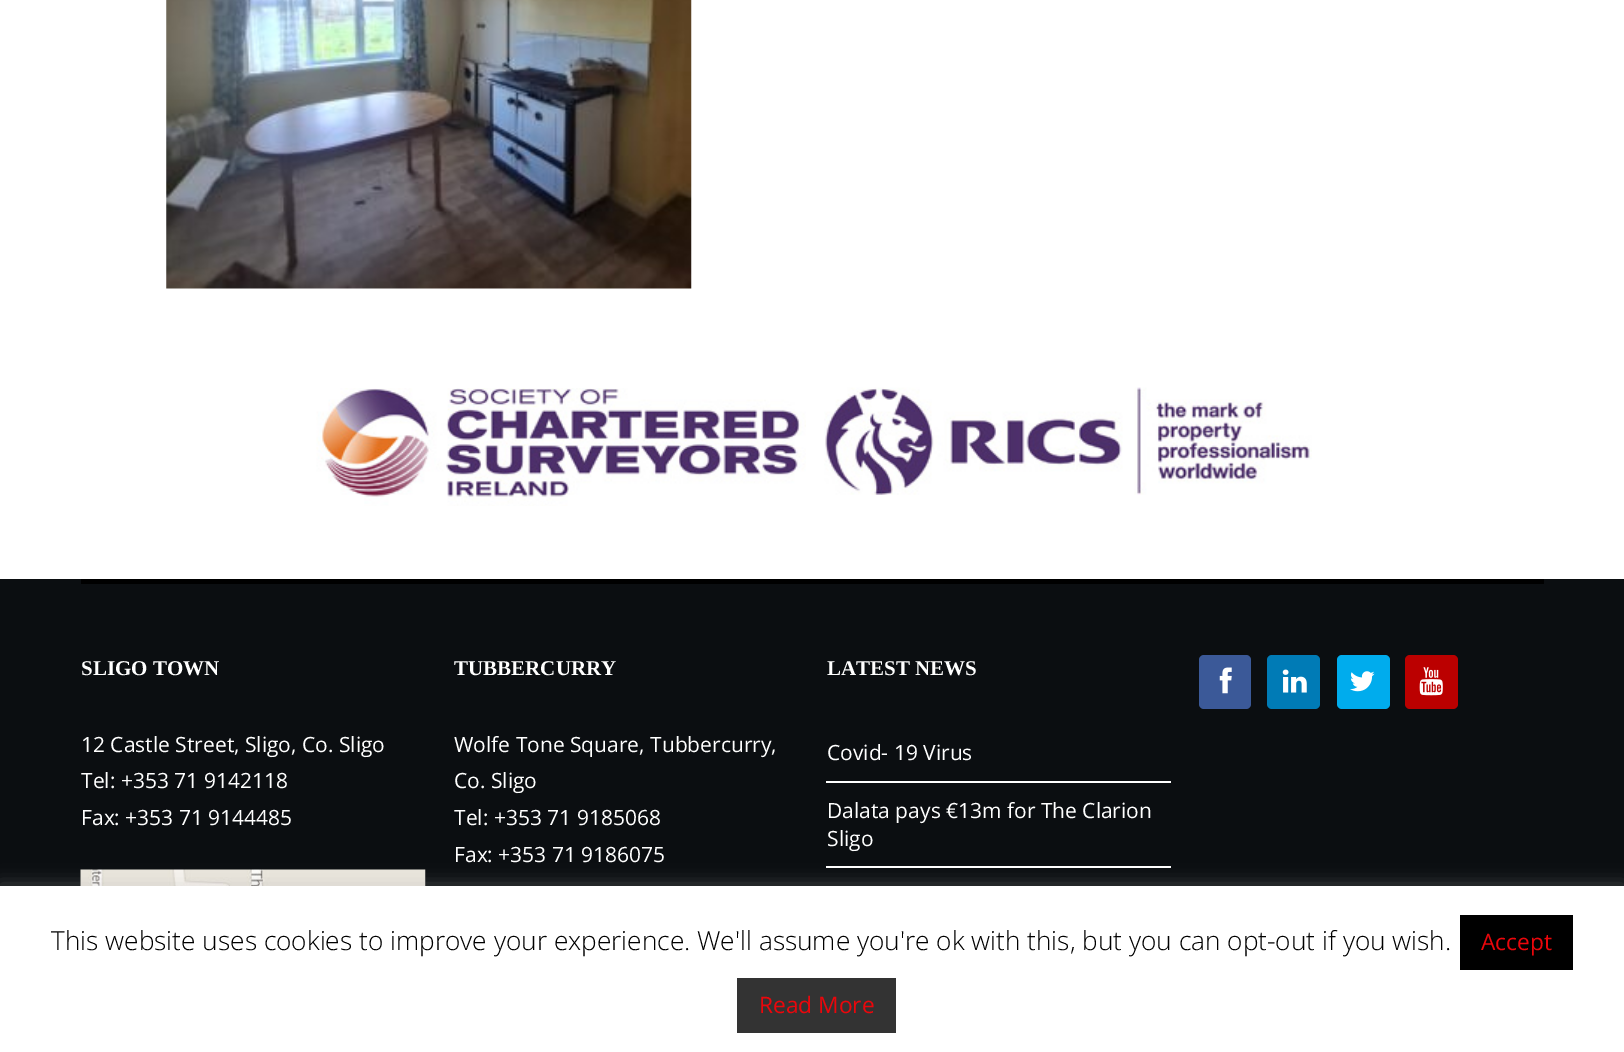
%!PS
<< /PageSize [1624 1052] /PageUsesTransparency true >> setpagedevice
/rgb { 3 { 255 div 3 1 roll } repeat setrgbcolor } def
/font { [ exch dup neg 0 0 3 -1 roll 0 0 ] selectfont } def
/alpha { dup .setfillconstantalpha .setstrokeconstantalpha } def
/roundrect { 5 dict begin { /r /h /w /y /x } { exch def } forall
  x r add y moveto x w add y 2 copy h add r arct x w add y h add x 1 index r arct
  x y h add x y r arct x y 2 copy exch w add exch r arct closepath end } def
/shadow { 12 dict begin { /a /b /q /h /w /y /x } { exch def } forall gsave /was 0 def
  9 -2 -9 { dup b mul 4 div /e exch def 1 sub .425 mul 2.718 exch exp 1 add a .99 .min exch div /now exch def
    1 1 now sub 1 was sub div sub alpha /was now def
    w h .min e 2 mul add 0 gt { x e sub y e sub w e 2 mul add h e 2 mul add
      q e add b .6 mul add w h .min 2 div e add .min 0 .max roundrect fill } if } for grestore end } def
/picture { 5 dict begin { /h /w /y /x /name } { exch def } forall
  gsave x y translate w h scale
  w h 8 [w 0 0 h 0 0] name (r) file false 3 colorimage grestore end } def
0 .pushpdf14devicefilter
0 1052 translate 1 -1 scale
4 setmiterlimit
255 255 255 rgb
0 0 1624 1052 rectfill
(img/1.rgb) 166 0 526 289 picture
(img/2.rgb) 316 388 490 118 picture
(img/3.rgb) 824 387 488 108 picture
11 14 17 rgb
0 579 1624 307 rectfill
0 0 0 rgb
81 579 1463 5 rectfill
(img/4.rgb) 80 869 346 17 picture
255 255 255 rgb
826 781 345 2 rectfill
826 866 345 2 rectfill
59 89 152 rgb
1199 655 52 54 5 roundrect fill
(img/5.rgb) 1219 667 13 27 picture
0 123 182 rgb
1267 655 53 54 5 roundrect fill
(img/6.rgb) 1282 669 25 24 picture
0 172 237 rgb
1337 655 53 54 5 roundrect fill
(img/7.rgb) 1350 671 25 21 picture
187 0 0 rgb
1405 655 53 54 5 roundrect fill
(img/8.rgb) 1419 667 24 29 picture
172 171 171 rgb
0 884 1624 168 0 9 0.3 shadow
[
  [0 886 1624 166 255 255 255]
  [1460 915 113 55 0 0 0]
  [737 978 159 55 51 51 51]
] { aload pop rgb rectfill } forall
/LiberationSerif-Bold 21 font
255 255 255 rgb
81 675 moveto (SLIGO TOWN) show
/OpenSans-Regular 21 font
[
  [(12 Castle Street, Sligo, Co. Sligo) 81 752]
  [(Tel: +353 71 9142118) 81 788]
  [(Fax: +353 71 9144485) 81 825]
] { aload pop moveto show } forall
/LiberationSerif-Bold 21 font
454 675 moveto (TUBBERCURRY) show
/OpenSans-Regular 21 font
[
  [(Wolfe Tone Square, Tubbercurry,) 454 752]
  [(Co. Sligo) 454 788]
  [(Tel: +353 71 9185068) 454 825]
  [(Fax: +353 71 9186075) 454 862]
] { aload pop moveto show } forall
/LiberationSerif-Bold 21 font
827 675 moveto (LATEST NEWS) show
/OpenSans-Regular 21 font
[
  [(Covid- 19 Virus) 827 760]
  [(Dalata pays €13m for The Clarion) 827 818]
  [(Sligo) 827 846]
] { aload pop moveto show } forall
/OpenSans-Light 26.25 font
0 0 0 rgb
51 950 moveto (This website uses cookies to improve your experience. We'll assume you're ok with this, but you can opt-out if you wish.) show
/OpenSans-Regular 22.75 font
235 6 11 rgb
1481 950 moveto (Accept) show
759 1013 moveto (Read More) show
.poppdf14devicefilter showpage
